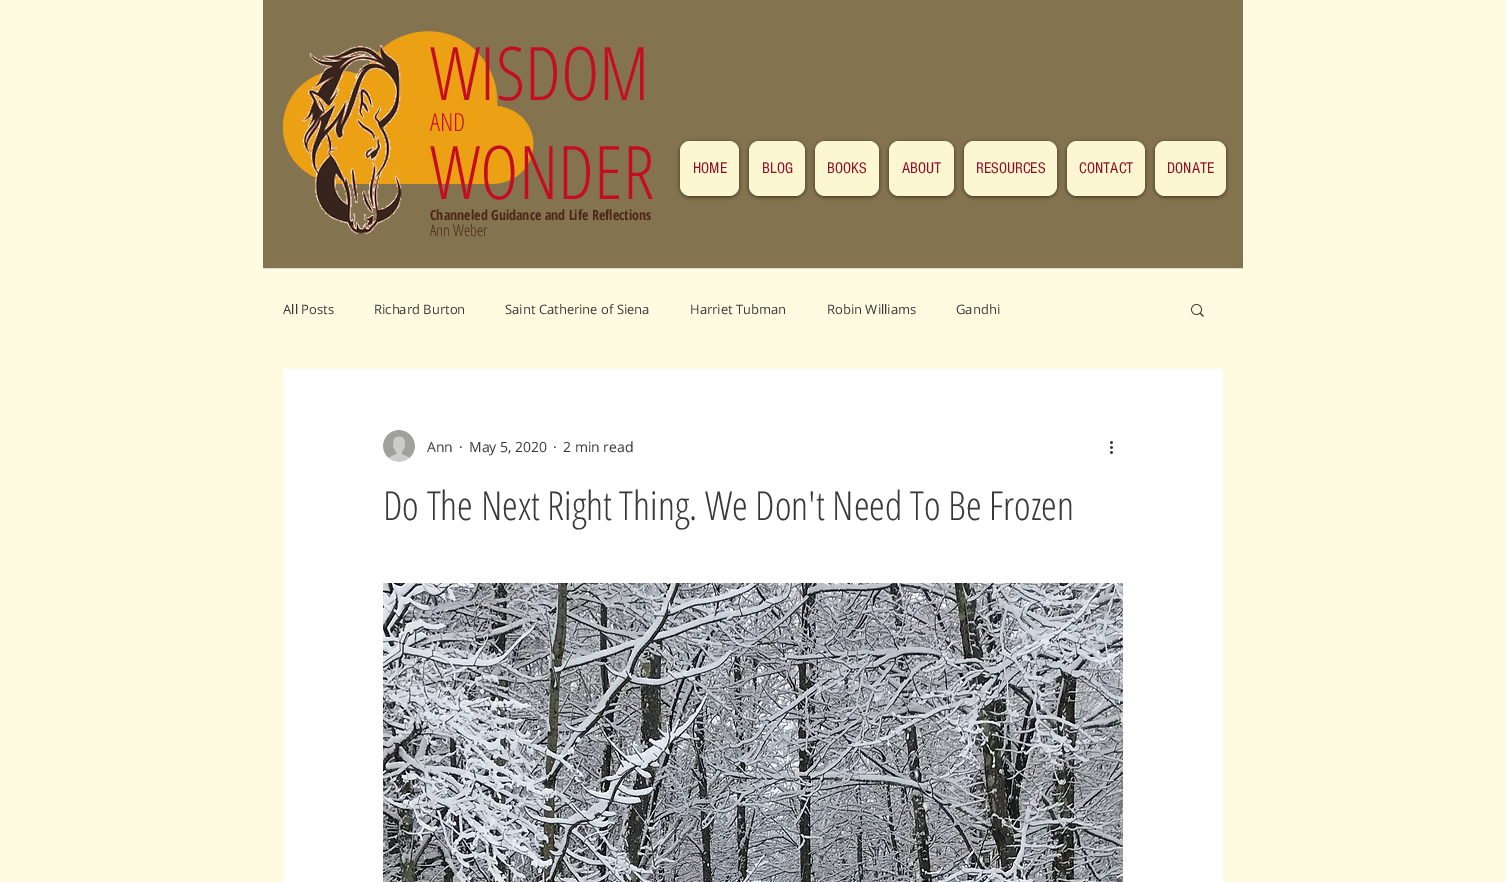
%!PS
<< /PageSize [1506 882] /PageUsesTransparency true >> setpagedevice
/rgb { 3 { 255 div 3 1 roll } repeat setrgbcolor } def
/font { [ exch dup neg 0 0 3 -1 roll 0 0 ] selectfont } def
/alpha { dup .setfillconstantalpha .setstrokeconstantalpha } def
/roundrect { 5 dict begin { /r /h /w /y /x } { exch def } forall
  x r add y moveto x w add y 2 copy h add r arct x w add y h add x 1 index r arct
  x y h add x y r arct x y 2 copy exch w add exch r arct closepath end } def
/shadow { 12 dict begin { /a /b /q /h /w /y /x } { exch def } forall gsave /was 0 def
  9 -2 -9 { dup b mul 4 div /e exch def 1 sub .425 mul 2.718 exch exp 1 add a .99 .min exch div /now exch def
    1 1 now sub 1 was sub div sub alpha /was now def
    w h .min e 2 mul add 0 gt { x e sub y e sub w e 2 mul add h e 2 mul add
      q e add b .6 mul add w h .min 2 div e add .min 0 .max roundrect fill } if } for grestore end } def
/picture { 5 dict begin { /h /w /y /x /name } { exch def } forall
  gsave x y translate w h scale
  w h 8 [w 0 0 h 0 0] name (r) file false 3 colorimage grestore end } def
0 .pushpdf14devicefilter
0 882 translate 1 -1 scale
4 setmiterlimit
255 251 224 rgb
0 0 1506 882 rectfill
132 115 79 rgb
263 0 980 268 rectfill
224 220 211 rgb
263 268 980 1 rectfill
236 160 19 rgb
533 139 moveto 530 120 515 108 497 106 curveto 498 90 494 75 485 62 curveto 454 15 383 24 363 76 curveto 352 71 339 69 326 72 curveto 301 78 283 101 283 127 curveto 283 161 311 184 343 184 curveto 491 184 lineto 516 184 536 165 533 139 curveto closepath fill
(img/1.rgb) 301 45 101 189 picture
0 0 0 rgb
680 142 59 55 10 2 0.6 shadow
252 247 209 rgb
680 141 59 55 10 roundrect fill
0 0 0 rgb
749 142 56 55 10 2 0.6 shadow
252 247 209 rgb
749 141 56 55 10 roundrect fill
0 0 0 rgb
815 142 64 55 10 2 0.6 shadow
252 247 209 rgb
815 141 64 55 10 roundrect fill
0 0 0 rgb
889 142 65 55 10 2 0.6 shadow
252 247 209 rgb
889 141 65 55 10 roundrect fill
0 0 0 rgb
964 142 93 55 10 2 0.6 shadow
252 247 209 rgb
964 141 93 55 10 roundrect fill
0 0 0 rgb
1067 142 78 55 10 2 0.6 shadow
252 247 209 rgb
1067 141 78 55 10 roundrect fill
0 0 0 rgb
1155 142 71 55 10 2 0.6 shadow
252 247 209 rgb
1155 141 71 55 10 roundrect fill
(img/2.rgb) 1191 304 13 13 picture
255 255 255 rgb
283 369 940 513 rectfill
(img/3.rgb) 383 430 32 32 picture
(img/4.rgb) 1110 441 3 13 picture
(img/5.rgb) 383 583 740 299 picture
/OpenSansCondensed-Light 74 font
196 12 35 rgb
430 100 moveto (WISDOM) show
/OpenSansCondensed-Light 25 font
430 131 moveto (AND) show
/OpenSansCondensed-Light 74 font
430 199 moveto (WONDER) show
/OpenSansCondensed-Bold 14 font
78 39 24 rgb
430 220 moveto (Channeled Guidance and Life Reflections) show
/OpenSansCondensed-Light 16 font
430 236 moveto (Ann Weber) show
/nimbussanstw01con-Regular 16 font
141 16 40 rgb
[
  [(HOME) 693 173]
  [(BLOG) 762 173]
  [(BOOKS) 827 173]
  [(ABOUT) 902 173]
  [(RESOURCES) 976 173]
  [(CONTACT) 1079 173]
  [(DONATE) 1167 173]
] { aload pop moveto show } forall
/OpenSans-Regular 13 font
56 56 56 rgb
[
  [(All Posts) 283 314]
  [(Richard Burton) 374 314]
  [(Saint Catherine of Siena) 505 314]
  [(Harriet Tubman) 690 314]
  [(Robin Williams) 827 314]
  [(Gandhi) 956 314]
] { aload pop moveto show } forall
/OpenSans-Regular 14 font
[
  [(Ann) 427 452]
  [(·) 459 452]
  [(May 5, 2020) 469 452]
  [(·) 553 452]
  [(2 min read) 563 452]
] { aload pop moveto show } forall
/OpenSansCondensed-Light 40 font
383 520 moveto (Do The Next Right Thing. We Don't Need To Be Frozen) show
.poppdf14devicefilter showpage
